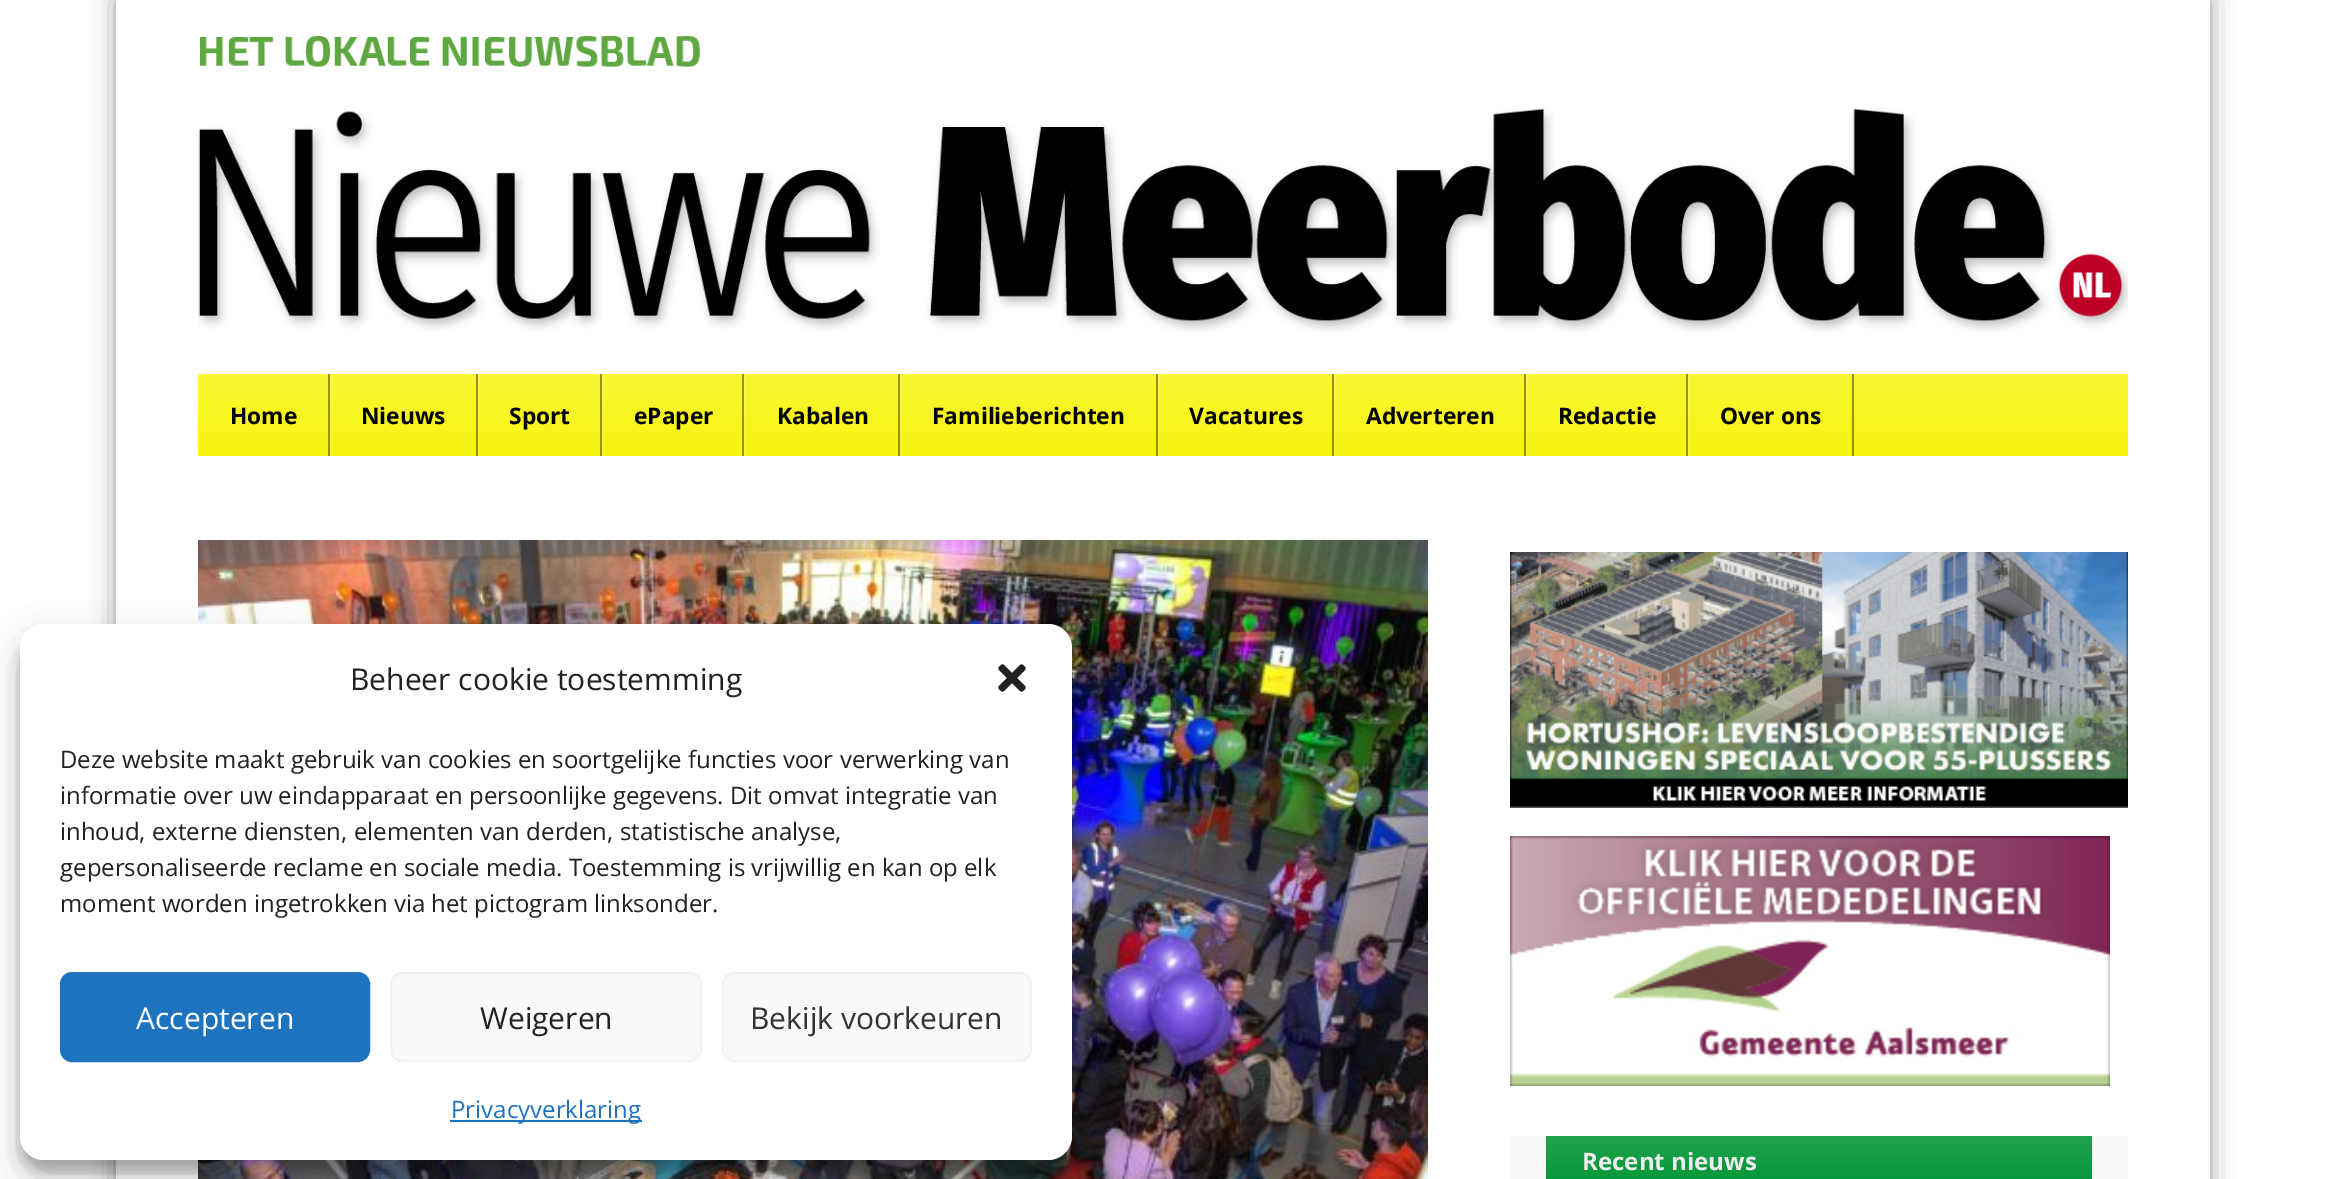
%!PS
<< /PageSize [2326 1179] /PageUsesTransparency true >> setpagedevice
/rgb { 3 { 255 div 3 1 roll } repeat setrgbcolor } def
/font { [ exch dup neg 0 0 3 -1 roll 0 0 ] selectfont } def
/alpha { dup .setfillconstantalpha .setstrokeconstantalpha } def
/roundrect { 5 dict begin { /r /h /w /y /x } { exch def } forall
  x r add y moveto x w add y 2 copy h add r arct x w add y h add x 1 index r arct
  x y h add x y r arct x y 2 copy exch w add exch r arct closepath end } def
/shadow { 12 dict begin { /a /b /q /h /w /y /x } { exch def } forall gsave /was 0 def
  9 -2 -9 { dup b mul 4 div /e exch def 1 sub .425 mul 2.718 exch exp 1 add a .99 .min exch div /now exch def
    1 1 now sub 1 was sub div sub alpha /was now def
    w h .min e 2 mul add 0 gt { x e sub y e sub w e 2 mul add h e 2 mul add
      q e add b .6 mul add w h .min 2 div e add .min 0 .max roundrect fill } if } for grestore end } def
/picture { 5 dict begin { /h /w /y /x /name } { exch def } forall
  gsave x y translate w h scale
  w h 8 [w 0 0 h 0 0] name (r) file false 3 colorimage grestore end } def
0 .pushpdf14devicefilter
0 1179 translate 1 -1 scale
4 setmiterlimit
255 255 255 rgb
0 0 2326 1179 rectfill
gsave
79 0 moveto 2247 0 lineto 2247 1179 lineto 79 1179 lineto closepath 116 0 moveto 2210 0 lineto 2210 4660 lineto 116 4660 lineto closepath eoclip newpath
0 0 0 rgb
116 0 2094 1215 0 12 0.4 shadow
grestore
(img/1.rgb) 198 36 1930 297 picture
gsave 200 374 moveto 2128 374 lineto 2128 456 lineto 200 456 lineto closepath clip newpath
<< /ShadingType 2 /ColorSpace /DeviceRGB /Coords [1163 374 1163 456] /Extend [true true] /Function << /FunctionType 2 /Domain [0 1] /C0 [0.976 0.965 0.196] /C1 [0.973 0.957 0.067] /N 1 >> >> shfill grestore
gsave 1688 374 moveto 1690 374 lineto 1690 456 lineto 1688 456 lineto closepath clip newpath
<< /ShadingType 2 /ColorSpace /DeviceRGB /Coords [1163 374 1163 456] /Extend [true true] /Function << /FunctionType 2 /Domain [0 1] /C0 [0.98 0.969 0.278] /C1 [0.976 0.961 0.161] /N 1 >> >> shfill grestore
gsave 1852 374 moveto 1854 374 lineto 1854 456 lineto 1852 456 lineto closepath clip newpath
<< /ShadingType 2 /ColorSpace /DeviceRGB /Coords [1163 374 1163 456] /Extend [true true] /Function << /FunctionType 2 /Domain [0 1] /C0 [0.584 0.58 0.118] /C1 [0.584 0.573 0.039] /N 1 >> >> shfill grestore
gsave 1526 374 moveto 1528 374 lineto 1528 456 lineto 1526 456 lineto closepath clip newpath
<< /ShadingType 2 /ColorSpace /DeviceRGB /Coords [1163 374 1163 456] /Extend [true true] /Function << /FunctionType 2 /Domain [0 1] /C0 [0.98 0.969 0.278] /C1 [0.976 0.961 0.161] /N 1 >> >> shfill grestore
gsave 1686 374 moveto 1688 374 lineto 1688 456 lineto 1686 456 lineto closepath clip newpath
<< /ShadingType 2 /ColorSpace /DeviceRGB /Coords [1163 374 1163 456] /Extend [true true] /Function << /FunctionType 2 /Domain [0 1] /C0 [0.584 0.58 0.118] /C1 [0.584 0.573 0.039] /N 1 >> >> shfill grestore
gsave 1334 374 moveto 1336 374 lineto 1336 456 lineto 1334 456 lineto closepath clip newpath
<< /ShadingType 2 /ColorSpace /DeviceRGB /Coords [1163 374 1163 456] /Extend [true true] /Function << /FunctionType 2 /Domain [0 1] /C0 [0.98 0.969 0.278] /C1 [0.976 0.961 0.161] /N 1 >> >> shfill grestore
gsave 1524 374 moveto 1526 374 lineto 1526 456 lineto 1524 456 lineto closepath clip newpath
<< /ShadingType 2 /ColorSpace /DeviceRGB /Coords [1163 374 1163 456] /Extend [true true] /Function << /FunctionType 2 /Domain [0 1] /C0 [0.584 0.58 0.118] /C1 [0.584 0.573 0.039] /N 1 >> >> shfill grestore
gsave 1158 374 moveto 1160 374 lineto 1160 456 lineto 1158 456 lineto closepath clip newpath
<< /ShadingType 2 /ColorSpace /DeviceRGB /Coords [1163 374 1163 456] /Extend [true true] /Function << /FunctionType 2 /Domain [0 1] /C0 [0.98 0.969 0.278] /C1 [0.976 0.961 0.161] /N 1 >> >> shfill grestore
gsave 1332 374 moveto 1334 374 lineto 1334 456 lineto 1332 456 lineto closepath clip newpath
<< /ShadingType 2 /ColorSpace /DeviceRGB /Coords [1163 374 1163 456] /Extend [true true] /Function << /FunctionType 2 /Domain [0 1] /C0 [0.584 0.58 0.118] /C1 [0.584 0.573 0.039] /N 1 >> >> shfill grestore
gsave 900 374 moveto 902 374 lineto 902 456 lineto 900 456 lineto closepath clip newpath
<< /ShadingType 2 /ColorSpace /DeviceRGB /Coords [1163 374 1163 456] /Extend [true true] /Function << /FunctionType 2 /Domain [0 1] /C0 [0.98 0.969 0.278] /C1 [0.976 0.961 0.161] /N 1 >> >> shfill grestore
gsave 1156 374 moveto 1158 374 lineto 1158 456 lineto 1156 456 lineto closepath clip newpath
<< /ShadingType 2 /ColorSpace /DeviceRGB /Coords [1163 374 1163 456] /Extend [true true] /Function << /FunctionType 2 /Domain [0 1] /C0 [0.584 0.58 0.118] /C1 [0.584 0.573 0.039] /N 1 >> >> shfill grestore
gsave 744 374 moveto 746 374 lineto 746 456 lineto 744 456 lineto closepath clip newpath
<< /ShadingType 2 /ColorSpace /DeviceRGB /Coords [1163 374 1163 456] /Extend [true true] /Function << /FunctionType 2 /Domain [0 1] /C0 [0.98 0.969 0.278] /C1 [0.976 0.961 0.161] /N 1 >> >> shfill grestore
gsave 898 374 moveto 900 374 lineto 900 456 lineto 898 456 lineto closepath clip newpath
<< /ShadingType 2 /ColorSpace /DeviceRGB /Coords [1163 374 1163 456] /Extend [true true] /Function << /FunctionType 2 /Domain [0 1] /C0 [0.584 0.58 0.118] /C1 [0.584 0.573 0.039] /N 1 >> >> shfill grestore
gsave 602 374 moveto 604 374 lineto 604 456 lineto 602 456 lineto closepath clip newpath
<< /ShadingType 2 /ColorSpace /DeviceRGB /Coords [1163 374 1163 456] /Extend [true true] /Function << /FunctionType 2 /Domain [0 1] /C0 [0.98 0.969 0.278] /C1 [0.976 0.961 0.161] /N 1 >> >> shfill grestore
gsave 742 374 moveto 744 374 lineto 744 456 lineto 742 456 lineto closepath clip newpath
<< /ShadingType 2 /ColorSpace /DeviceRGB /Coords [1163 374 1163 456] /Extend [true true] /Function << /FunctionType 2 /Domain [0 1] /C0 [0.584 0.58 0.118] /C1 [0.584 0.573 0.039] /N 1 >> >> shfill grestore
gsave 478 374 moveto 480 374 lineto 480 456 lineto 478 456 lineto closepath clip newpath
<< /ShadingType 2 /ColorSpace /DeviceRGB /Coords [1163 374 1163 456] /Extend [true true] /Function << /FunctionType 2 /Domain [0 1] /C0 [0.98 0.969 0.278] /C1 [0.976 0.961 0.161] /N 1 >> >> shfill grestore
gsave 600 374 moveto 602 374 lineto 602 456 lineto 600 456 lineto closepath clip newpath
<< /ShadingType 2 /ColorSpace /DeviceRGB /Coords [1163 374 1163 456] /Extend [true true] /Function << /FunctionType 2 /Domain [0 1] /C0 [0.584 0.58 0.118] /C1 [0.584 0.573 0.039] /N 1 >> >> shfill grestore
gsave 330 374 moveto 332 374 lineto 332 456 lineto 330 456 lineto closepath clip newpath
<< /ShadingType 2 /ColorSpace /DeviceRGB /Coords [1163 374 1163 456] /Extend [true true] /Function << /FunctionType 2 /Domain [0 1] /C0 [0.98 0.969 0.278] /C1 [0.976 0.961 0.161] /N 1 >> >> shfill grestore
gsave 476 374 moveto 478 374 lineto 478 456 lineto 476 456 lineto closepath clip newpath
<< /ShadingType 2 /ColorSpace /DeviceRGB /Coords [1163 374 1163 456] /Extend [true true] /Function << /FunctionType 2 /Domain [0 1] /C0 [0.584 0.58 0.118] /C1 [0.584 0.573 0.039] /N 1 >> >> shfill grestore
gsave 198 374 moveto 200 374 lineto 200 456 lineto 198 456 lineto closepath clip newpath
<< /ShadingType 2 /ColorSpace /DeviceRGB /Coords [1163 374 1163 456] /Extend [true true] /Function << /FunctionType 2 /Domain [0 1] /C0 [0.98 0.969 0.278] /C1 [0.976 0.961 0.161] /N 1 >> >> shfill grestore
gsave 328 374 moveto 330 374 lineto 330 456 lineto 328 456 lineto closepath clip newpath
<< /ShadingType 2 /ColorSpace /DeviceRGB /Coords [1163 374 1163 456] /Extend [true true] /Function << /FunctionType 2 /Domain [0 1] /C0 [0.584 0.58 0.118] /C1 [0.584 0.573 0.039] /N 1 >> >> shfill grestore
(img/2.rgb) 198 540 1230 639 picture
(img/3.rgb) 1510 552 618 256 picture
(img/4.rgb) 1510 836 600 250 picture
250 250 250 rgb
1510 1136 618 43 rectfill
gsave 1546 1136 moveto 2092 1136 lineto 2092 1179 lineto 1546 1179 lineto closepath clip newpath
<< /ShadingType 2 /ColorSpace /DeviceRGB /Coords [1819 1136 1819 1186] /Extend [true true] /Function << /FunctionType 2 /Domain [0 1] /C0 [0.129 0.639 0.306] /C1 [0.012 0.588 0.212] /N 1 >> >> shfill grestore
0 0 0 rgb
20 636 1052 536 24 6 0.23 shadow
20 644 1052 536 24 20 0.19 shadow
255 255 255 rgb
20 624 1052 536 24 roundrect fill
(img/5.rgb) 998 664 28 28 picture
30 115 190 rgb
61 973 308 88 11 roundrect gsave fill grestore
2 setlinewidth
stroke
249 249 249 rgb
391 973 310 88 11 roundrect gsave fill grestore
242 242 242 rgb
stroke
249 249 249 rgb
723 973 308 88 11 roundrect gsave fill grestore
242 242 242 rgb
stroke
30 115 190 rgb
450 1120 192 2 rectfill
/OpenSans-Bold 22.75 font
0 0 0 rgb
[
  [(Home) 230 424]
  [(Nieuws) 361 424]
  [(Sport) 509 424]
  [(ePaper) 634 424]
  [(Kabalen) 777 424]
  [(Familieberichten) 932 424]
  [(Vacatures) 1189 424]
  [(Adverteren) 1366 424]
  [(Redactie) 1558 424]
  [(Over ons) 1720 424]
] { aload pop moveto show } forall
/OpenSans-Bold 24 font
238 238 238 rgb
1582 1170 moveto (Recent nieuws) show
/OpenSans-Regular 30 font
34 34 34 rgb
350 690 moveto (Beheer cookie toestemming) show
/OpenSans-Regular 24 font
[
  [(Deze website maakt gebruik van cookies en soortgelijke functies voor verwerking van) 60 768]
  [(informatie over uw eindapparaat en persoonlijke gegevens. Dit omvat integratie van) 60 804]
  [(inhoud, externe diensten, elementen van derden, statistische analyse,) 60 840]
  [(gepersonaliseerde reclame en sociale media. Toestemming is vrijwillig en kan op elk) 60 876]
  [(moment worden ingetrokken via het pictogram linksonder.) 60 912]
] { aload pop moveto show } forall
/OpenSans-Regular 30 font
255 255 255 rgb
136 1029 moveto (Accepteren) show
34 34 34 rgb
480 1029 moveto (Weigeren) show
51 51 51 rgb
750 1029 moveto (Bekijk voorkeuren) show
/OpenSans-Regular 24 font
30 115 190 rgb
451 1118 moveto (Privacyverklaring) show
.poppdf14devicefilter showpage
